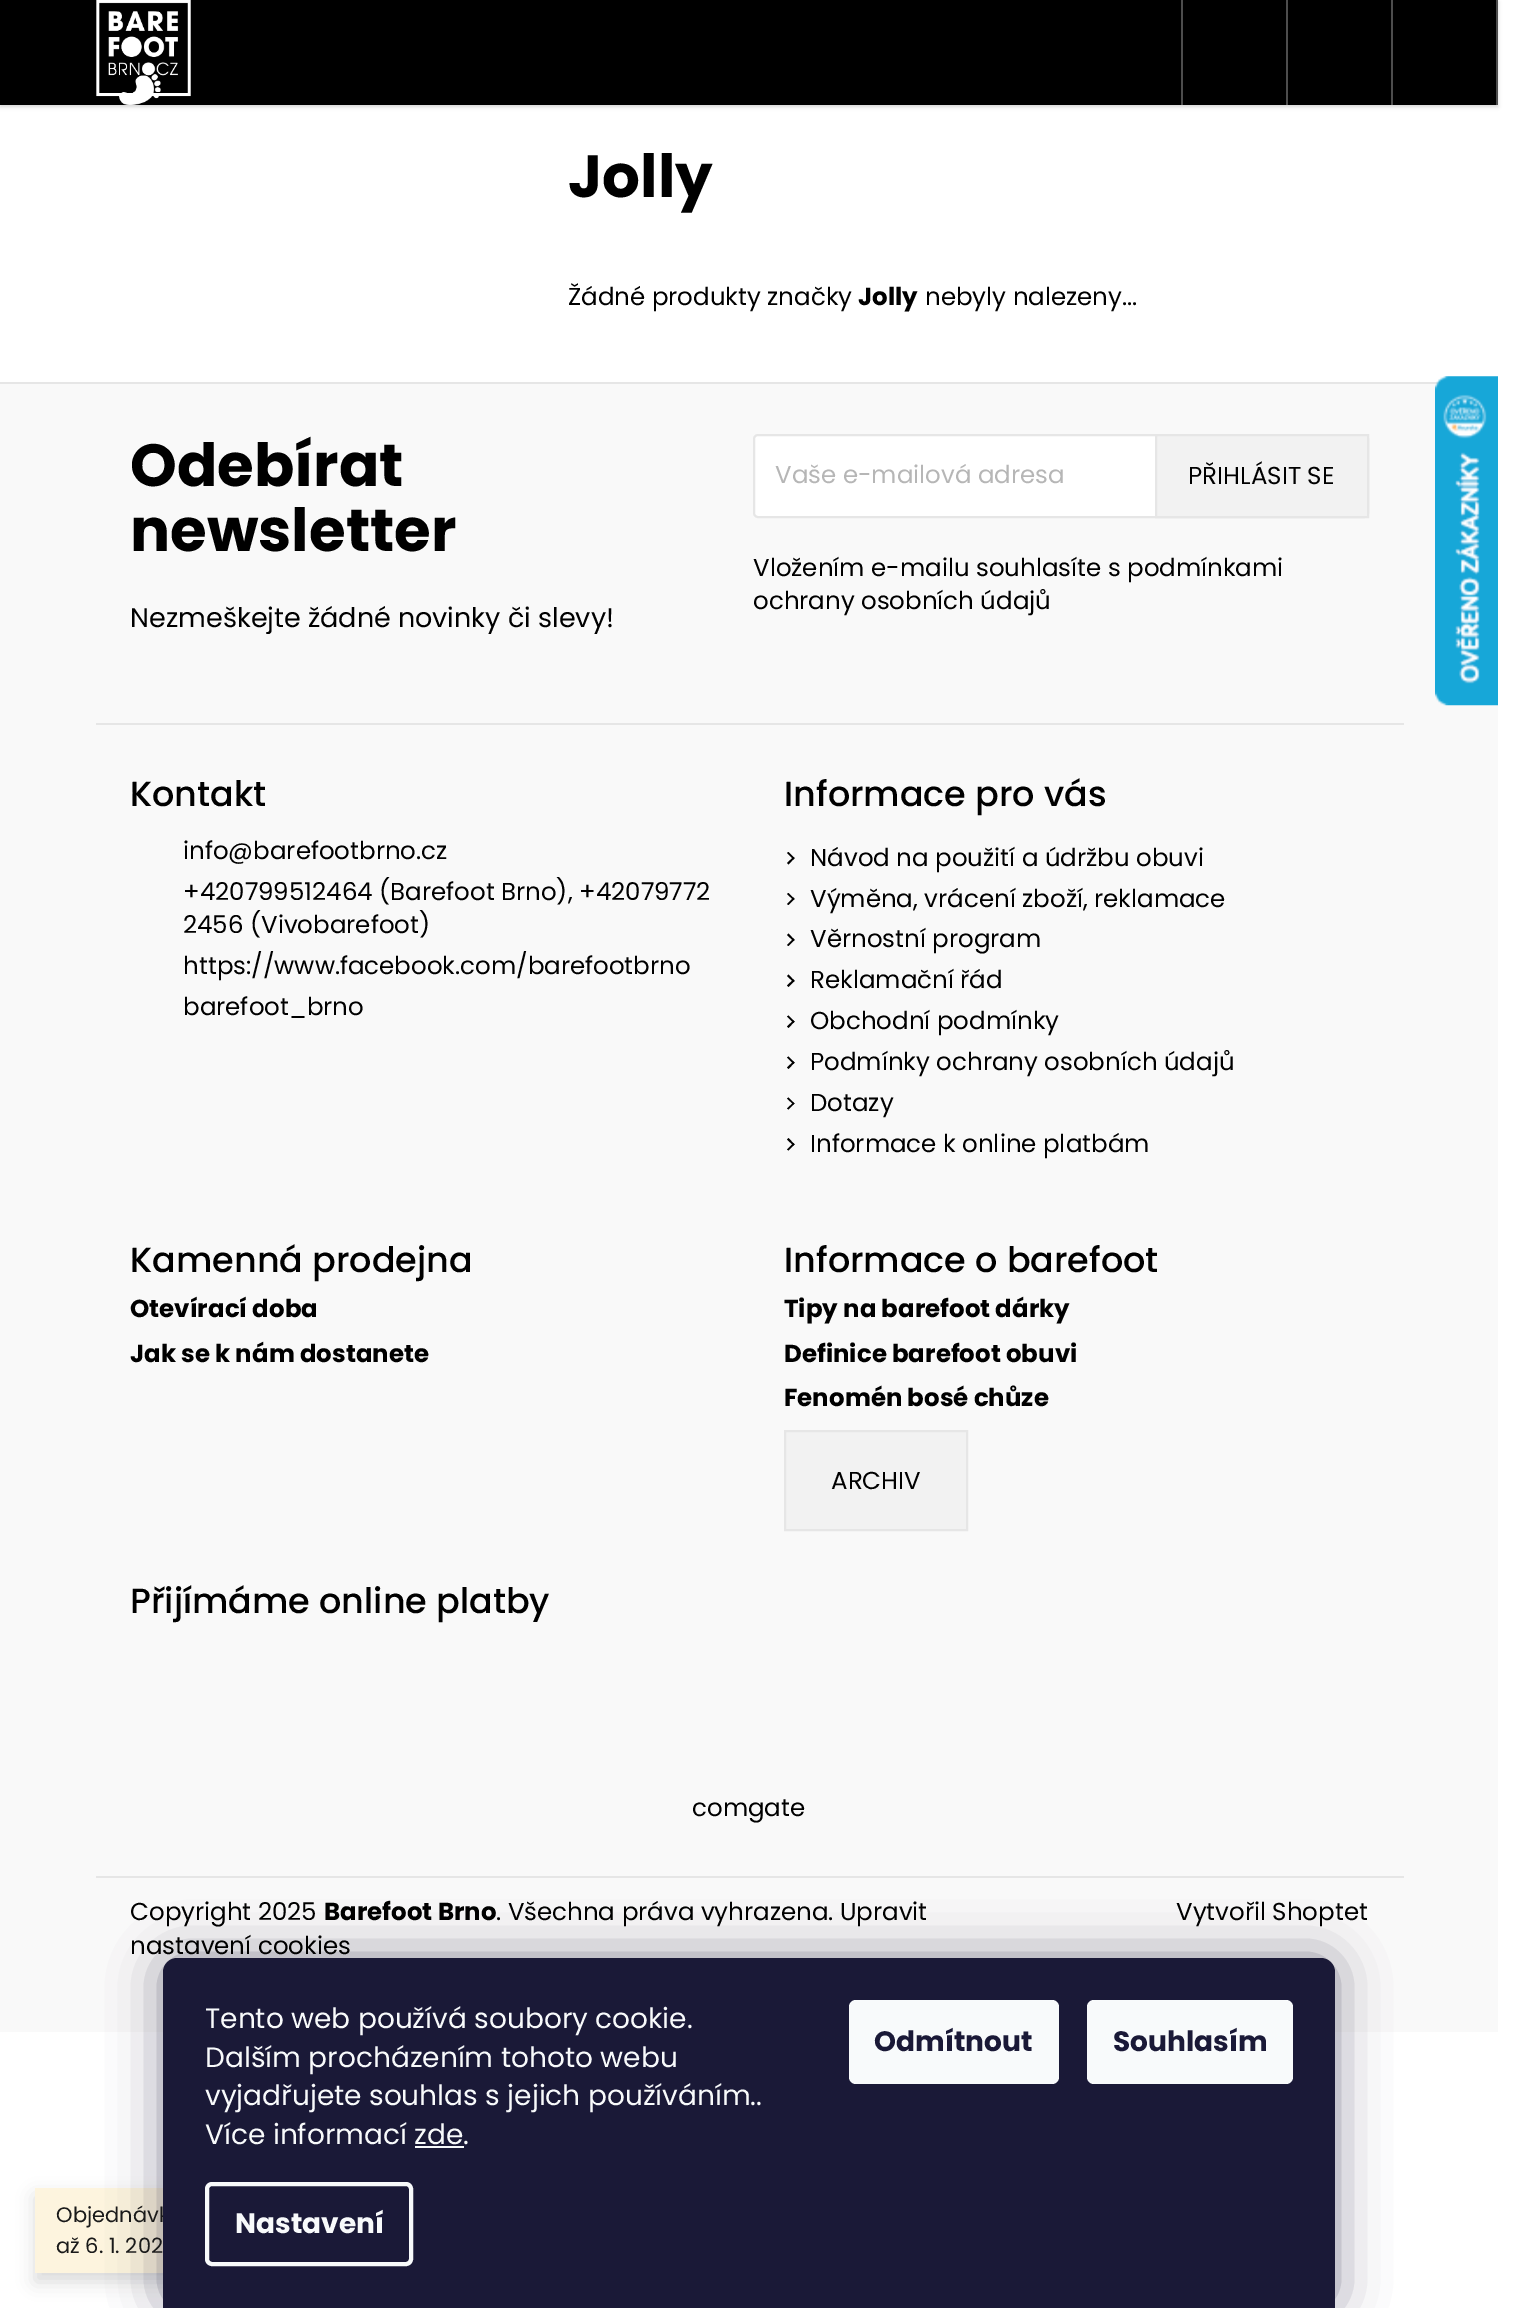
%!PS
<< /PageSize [1523 2308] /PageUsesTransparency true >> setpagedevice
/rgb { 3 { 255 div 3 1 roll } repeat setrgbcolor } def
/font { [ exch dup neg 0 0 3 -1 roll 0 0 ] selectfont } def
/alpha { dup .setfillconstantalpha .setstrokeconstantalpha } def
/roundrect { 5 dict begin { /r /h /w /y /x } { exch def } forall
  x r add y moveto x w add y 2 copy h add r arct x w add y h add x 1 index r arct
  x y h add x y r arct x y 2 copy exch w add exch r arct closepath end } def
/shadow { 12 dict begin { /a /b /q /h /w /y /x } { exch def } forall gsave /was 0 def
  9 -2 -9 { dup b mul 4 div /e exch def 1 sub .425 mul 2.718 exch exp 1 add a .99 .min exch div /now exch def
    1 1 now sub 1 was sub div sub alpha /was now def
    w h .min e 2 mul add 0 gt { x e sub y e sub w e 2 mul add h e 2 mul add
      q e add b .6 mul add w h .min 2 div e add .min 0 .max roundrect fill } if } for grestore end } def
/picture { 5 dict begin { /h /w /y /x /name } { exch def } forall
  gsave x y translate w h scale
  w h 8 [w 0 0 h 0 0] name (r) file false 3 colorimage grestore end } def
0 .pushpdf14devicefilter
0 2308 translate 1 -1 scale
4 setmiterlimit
255 255 255 rgb
0 0 1523 2308 rectfill
0 0 0 rgb
0 2 1498 105 0 2 0.16 shadow
0 0 1496 105 rectfill
(img/1.rgb) 96 0 95 105 picture
[
  [1496 0 2 105 77 77 77]
  [1181 0 2 105 77 77 77]
  [1286 0 2 105 77 77 77]
  [1391 0 2 105 77 77 77]
  [0 384 1498 1648 249 249 249]
  [0 382 1441 2 230 230 230]
  [96 723 1308 2 230 230 230]
] { aload pop rgb rectfill } forall
255 255 255 rgb
754 435 614 82 4 roundrect gsave fill grestore
230 230 230 rgb
2 setlinewidth
stroke
242 242 242 rgb
1156 435 moveto 1368 435 lineto 1368 517 lineto 1156 517 lineto closepath gsave fill grestore
230 230 230 rgb
stroke
0 0 0 rgb
787 853 moveto 788.5 852 lineto 794.5 858 lineto 793.5 859.5 lineto closepath fill
787 863 moveto 793.5 857 lineto 794.5 858 lineto 788.5 864.5 lineto closepath fill
787 894 moveto 788.5 893 lineto 794.5 899 lineto 793.5 900 lineto closepath fill
787 904 moveto 793.5 897.5 lineto 794.5 899 lineto 788.5 905 lineto closepath fill
787 935 moveto 788.5 933.5 lineto 794.5 940 lineto 793.5 941 lineto closepath fill
787 945 moveto 793.5 938.5 lineto 794.5 940 lineto 788.5 946 lineto closepath fill
787 976 moveto 788.5 974.5 lineto 794.5 981 lineto 793.5 982 lineto closepath fill
787 985.5 moveto 793.5 979.5 lineto 794.5 981 lineto 788.5 987 lineto closepath fill
787 1016.5 moveto 788.5 1015.5 lineto 794.5 1021.5 lineto 793.5 1023 lineto closepath fill
787 1026.5 moveto 793.5 1020.5 lineto 794.5 1021.5 lineto 788.5 1028 lineto closepath fill
787 1057.5 moveto 788.5 1056.5 lineto 794.5 1062.5 lineto 793.5 1064 lineto closepath fill
787 1067.5 moveto 793.5 1061.5 lineto 794.5 1062.5 lineto 788.5 1069 lineto closepath fill
787 1098.5 moveto 788.5 1097.5 lineto 794.5 1103.5 lineto 793.5 1104.5 lineto closepath fill
787 1108.5 moveto 793.5 1102.5 lineto 794.5 1103.5 lineto 788.5 1109.5 lineto closepath fill
787 1139.5 moveto 788.5 1138 lineto 794.5 1144.5 lineto 793.5 1145.5 lineto closepath fill
787 1149.5 moveto 793.5 1143 lineto 794.5 1144.5 lineto 788.5 1150.5 lineto closepath fill
242 242 242 rgb
785 1431 moveto 967 1431 lineto 967 1530 lineto 785 1530 lineto closepath gsave fill grestore
230 230 230 rgb
stroke
96 1876 1308 2 rectfill
26 26 26 rgb
35 2196 840 86 0 9 0.16 shadow
253 244 222 rgb
35 2188 128 85 rectfill
(img/2.rgb) 1435 376 63 330 picture
27 25 57 rgb
163 1958 1172 350 14 26 0.5 shadow
/Poppins-Bold 59.5 font
0 0 0 rgb
568 197 moveto (Jolly) show
/Poppins-Regular 24.5 font
568 305 moveto (Žádné produkty značky) show
/Poppins-Bold 24.5 font
858 305 moveto (Jolly) show
/Poppins-Regular 24.5 font
925 305 moveto (nebyly nalezeny...) show
/Poppins-Bold 59.5 font
130 486 moveto (Odebírat) show
130 551 moveto (newsletter) show
/Poppins-Regular 27 font
130 627 moveto (Nezmeškejte žádné novinky či slevy!) show
/Poppins-Regular 24.5 font
182 182 182 rgb
775 483 moveto (Vaše e-mailová adresa) show
0 0 0 rgb
[
  [(PŘIHLÁSIT SE) 1188 484]
  [(Vložením e-mailu souhlasíte s podmínkami) 753 576]
  [(ochrany osobních údajů) 753 609]
] { aload pop moveto show } forall
/Poppins-Medium 35 font
130 806 moveto (Kontakt) show
/Poppins-Regular 24.5 font
[
  [(info@barefootbrno.cz) 183 859]
  [(+420799512464 \(Barefoot Brno\), +42079772) 183 900]
  [(2456 \(Vivobarefoot\)) 183 933]
  [(https://www.facebook.com/barefootbrno) 183 974]
  [(barefoot_brno) 183 1015]
] { aload pop moveto show } forall
/Poppins-Medium 35 font
784 806 moveto (Informace pro vás) show
/Poppins-Regular 24.5 font
[
  [(Návod na použití a údržbu obuvi) 810 866]
  [(Výměna, vrácení zboží, reklamace) 810 907]
  [(Věrnostní program) 810 947]
  [(Reklamační řád) 810 988]
  [(Obchodní podmínky) 810 1029]
  [(Podmínky ochrany osobních údajů) 810 1070]
  [(Dotazy) 810 1111]
  [(Informace k online platbám) 810 1152]
] { aload pop moveto show } forall
/Poppins-Medium 35 font
130 1272 moveto (Kamenná prodejna) show
/Poppins-Bold 24.5 font
130 1317 moveto (Otevírací doba) show
130 1362 moveto (Jak se k nám dostanete) show
/Poppins-Medium 35 font
784 1272 moveto (Informace o barefoot) show
/Poppins-Bold 24.5 font
[
  [(Tipy na barefoot dárky) 784 1317]
  [(Definice barefoot obuvi) 784 1362]
  [(Fenomén bosé chůze) 784 1406]
] { aload pop moveto show } forall
/Poppins-Regular 24.5 font
831 1489 moveto (ARCHIV) show
/Poppins-Medium 35 font
130 1613 moveto (Přijímáme online platby) show
/Poppins-Regular 24.5 font
692 1816 moveto (comgate) show
130 1920 moveto (Copyright 2025) show
/Poppins-Bold 24.5 font
324 1920 moveto (Barefoot Brno) show
/Poppins-Regular 24.5 font
[
  [(. Všechna práva vyhrazena. Upravit) 496 1920]
  [(Vytvořil Shoptet) 1176 1920]
  [(nastavení cookies) 130 1954]
] { aload pop moveto show } forall
/Poppins-Regular 21 font
26 26 26 rgb
56 2222 moveto (Objednávk) show
56 2253 moveto (až 6. 1. 202) show
26 25 55 rgb
177 1958 moveto 1321 1958 lineto 1328.5 1958 1335 1964.5 1335 1972 curveto 1335 2308 lineto 163 2308 lineto 163 1972 lineto 163 1964.5 169.5 1958 177 1958 curveto closepath fill
/Poppins-Regular 28 font
248 250 251 rgb
[
  [(Tento web používá soubory cookie.) 205 2028]
  [(Dalším procházením tohoto webu) 205 2067]
  [(vyjadřujete souhlas s jejich používáním..) 205 2105]
  [(Více informací zde.) 205 2144]
] { aload pop moveto show } forall
415 2146 49 2 rectfill
4 setlinewidth
207 2184 204 80 5 roundrect stroke
/Poppins-Bold 28 font
235 2233 moveto (Nastavení) show
849 2000 210 84 7 roundrect fill
26 25 55 rgb
874 2051 moveto (Odmítnout) show
248 250 251 rgb
1087 2000 206 84 7 roundrect fill
26 25 55 rgb
1113 2051 moveto (Souhlasím) show
.poppdf14devicefilter showpage
